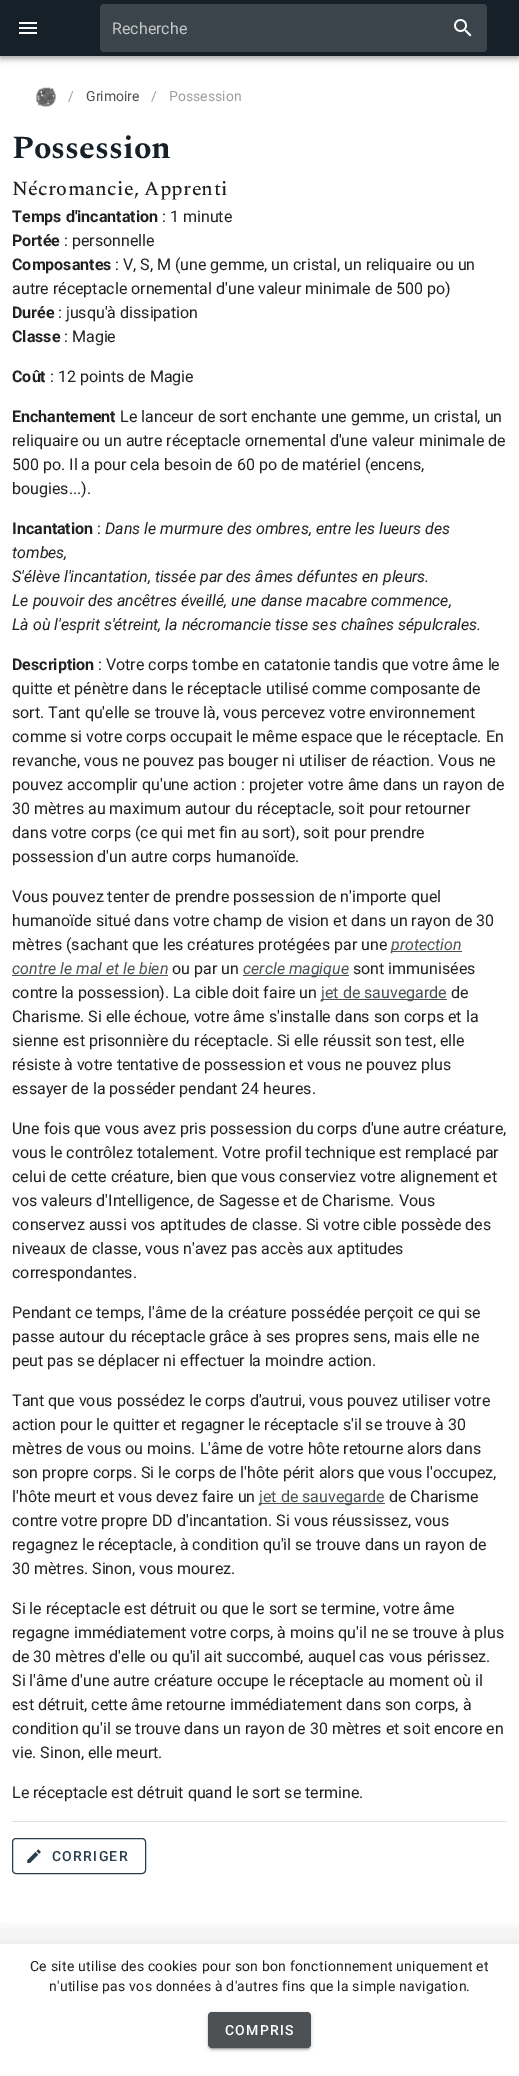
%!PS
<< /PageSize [519 2076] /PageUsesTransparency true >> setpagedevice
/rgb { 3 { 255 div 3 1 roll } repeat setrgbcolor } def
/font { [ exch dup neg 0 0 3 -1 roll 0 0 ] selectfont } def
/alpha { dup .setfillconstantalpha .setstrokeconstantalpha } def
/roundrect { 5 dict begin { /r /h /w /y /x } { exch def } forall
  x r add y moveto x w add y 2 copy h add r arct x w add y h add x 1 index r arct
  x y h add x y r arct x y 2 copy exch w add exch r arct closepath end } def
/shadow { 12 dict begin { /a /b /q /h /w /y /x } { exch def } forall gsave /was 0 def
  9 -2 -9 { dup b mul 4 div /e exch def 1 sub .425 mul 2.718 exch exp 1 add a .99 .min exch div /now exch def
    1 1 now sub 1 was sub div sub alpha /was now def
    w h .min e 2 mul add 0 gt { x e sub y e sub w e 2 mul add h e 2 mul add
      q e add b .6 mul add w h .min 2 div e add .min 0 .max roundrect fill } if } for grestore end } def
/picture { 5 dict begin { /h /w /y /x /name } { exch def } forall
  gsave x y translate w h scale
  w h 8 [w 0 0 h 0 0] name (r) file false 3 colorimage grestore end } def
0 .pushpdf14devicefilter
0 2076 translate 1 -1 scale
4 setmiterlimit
255 255 255 rgb
0 0 519 2076 rectfill
0 0 0 rgb
0 1 519 56 0 5 0.12 shadow
0 4 519 56 0 2.5 0.14 shadow
1 3 517 54 0 2 0.2 shadow
21 32 40 rgb
0 0 519 56 rectfill
(img/1.rgb) 19 22 18 12 picture
58 68 74 rgb
100 4 387 48 4 roundrect fill
(img/2.rgb) 454 19 18 18 picture
(img/3.rgb) 36 87 20 20 picture
[
  [391 951 71 1 77 81 83]
  [12 975 156 1 77 81 83]
  [243 975 106 1 77 81 83]
  [321 999 126 1 77 81 83]
  [259 1503 126 1 77 81 83]
  [12 1821 495 1 224 224 224]
] { aload pop rgb rectfill } forall
41 62 77 rgb
12.5 1838.5 133 35 3.5 roundrect stroke
(img/4.rgb) 27 1849 14 14 picture
gsave
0 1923 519 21 rectclip
0 0 0 rgb
-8 1945 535 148 0 23 0.12 shadow
grestore
0 0 0 rgb
208 2013 103 36 4 2.5 0.12 shadow
208 2014 103 36 4 1 0.14 shadow
210 2017 99 32 2 0.5 0.2 shadow
77 81 83 rgb
208 2012 103 36 4 roundrect fill
/Roboto-Regular 16 font
196 199 201 rgb
112 34 moveto (Recherche) show
/Roboto-Regular 14 font
158 158 158 rgb
68 101 moveto (/) show
77 81 83 rgb
86 101 moveto (Grimoire) show
158 158 158 rgb
151 101 moveto (/) show
169 101 moveto (Possession) show
/SpectralSC-Bold 32 font
21 32 40 rgb
12 158 moveto (Possession) show
/SpectralSC-Medium 20 font
33 33 33 rgb
12 195 moveto 0.25 0 (Nécromancie, Apprenti) ashow
/Roboto-Bold 16 font
12 222 moveto (Temps d'incantation) show
/Roboto-Regular 16 font
162 222 moveto (: 1 minute) show
/Roboto-Bold 16 font
12 246 moveto (Portée) show
/Roboto-Regular 16 font
64 246 moveto (: personnelle) show
/Roboto-Bold 16 font
12 270 moveto (Composantes) show
/Roboto-Regular 16 font
115 270 moveto (: V, S, M \(une gemme, un cristal, un reliquaire ou un) show
12 294 moveto (autre réceptacle ornemental d'une valeur minimale de 500 po\)) show
/Roboto-Bold 16 font
12 318 moveto (Durée) show
/Roboto-Regular 16 font
58 318 moveto (: jusqu'à dissipation) show
/Roboto-Bold 16 font
12 342 moveto (Classe) show
/Roboto-Regular 16 font
64 342 moveto (: Magie) show
/Roboto-Bold 16 font
12 382 moveto (Coût) show
/Roboto-Regular 16 font
50 382 moveto (: 12 points de Magie) show
/Roboto-Bold 16 font
12 422 moveto (Enchantement) show
/Roboto-Regular 16 font
[
  [(Le lanceur de sort enchante une gemme, un cristal, un) 120 422]
  [(reliquaire ou un autre réceptacle ornemental d'une valeur minimale de) 12 446]
  [(500 po. Il a pour cela besoin de 60 po de matériel \(encens,) 12 470]
  [(bougies...\).) 12 494]
] { aload pop moveto show } forall
/Roboto-Bold 16 font
12 534 moveto (Incantation) show
/Roboto-Regular 16 font
97 534 moveto (:) show
/Roboto-Italic 16 font
[
  [(Dans le murmure des ombres, entre les lueurs des) 105 534]
  [(tombes,) 12 558]
  [(S'élève l'incantation, tissée par des âmes défuntes en pleurs.) 12 582]
  [(Le pouvoir des ancêtres éveillé, une danse macabre commence,) 12 606]
  [(Là où l'esprit s'étreint, la nécromancie tisse ses chaînes sépulcrales.) 12 630]
] { aload pop moveto show } forall
/Roboto-Bold 16 font
12 670 moveto (Description) show
/Roboto-Regular 16 font
[
  [(: Votre corps tombe en catatonie tandis que votre âme le) 98 670]
  [(quitte et pénètre dans le réceptacle utilisé comme composante de) 12 694]
  [(sort. Tant qu'elle se trouve là, vous percevez votre environnement) 12 718]
  [(comme si votre corps occupait le même espace que le réceptacle. En) 12 742]
  [(revanche, vous ne pouvez pas bouger ni utiliser de réaction. Vous ne) 12 766]
  [(pouvez accomplir qu'une action : projeter votre âme dans un rayon de) 12 790]
  [(30 mètres au maximum autour du réceptacle, soit pour retourner) 12 814]
  [(dans votre corps \(ce qui met fin au sort\), soit pour prendre) 12 838]
  [(possession d'un autre corps humanoïde.) 12 862]
  [(Vous pouvez tenter de prendre possession de n'importe quel) 12 902]
  [(humanoïde situé dans votre champ de vision et dans un rayon de 30) 12 926]
  [(mètres \(sachant que les créatures protégées par une) 12 950]
] { aload pop moveto show } forall
/Roboto-Italic 16 font
77 81 83 rgb
391 950 moveto (protection) show
12 974 moveto (contre le mal et le bien) show
/Roboto-Regular 16 font
33 33 33 rgb
172 974 moveto (ou par un) show
/Roboto-Italic 16 font
77 81 83 rgb
243 974 moveto (cercle magique) show
/Roboto-Regular 16 font
33 33 33 rgb
353 974 moveto (sont immunisées) show
12 998 moveto (contre la possession\). La cible doit faire un) show
77 81 83 rgb
321 998 moveto (jet de sauvegarde) show
33 33 33 rgb
[
  [(de) 451 998]
  [(Charisme. Si elle échoue, votre âme s'installe dans son corps et la) 12 1022]
  [(sienne est prisonnière du réceptacle. Si elle réussit son test, elle) 12 1046]
  [(résiste à votre tentative de possession et vous ne pouvez plus) 12 1070]
  [(essayer de la posséder pendant 24 heures.) 12 1094]
  [(Une fois que vous avez pris possession du corps d'une autre créature,) 12 1134]
  [(vous le contrôlez totalement. Votre profil technique est remplacé par) 12 1158]
  [(celui de cette créature, bien que vous conserviez votre alignement et) 12 1182]
  [(vos valeurs d'Intelligence, de Sagesse et de Charisme. Vous) 12 1206]
  [(conservez aussi vos aptitudes de classe. Si votre cible possède des) 12 1230]
  [(niveaux de classe, vous n'avez pas accès aux aptitudes) 12 1254]
  [(correspondantes.) 12 1278]
  [(Pendant ce temps, l'âme de la créature possédée perçoit ce qui se) 12 1318]
  [(passe autour du réceptacle grâce à ses propres sens, mais elle ne) 12 1342]
  [(peut pas se déplacer ni effectuer la moindre action.) 12 1366]
  [(Tant que vous possédez le corps d'autrui, vous pouvez utiliser votre) 12 1406]
  [(action pour le quitter et regagner le réceptacle s'il se trouve à 30) 12 1430]
  [(mètres de vous ou moins. L'âme de votre hôte retourne alors dans) 12 1454]
  [(son propre corps. Si le corps de l'hôte périt alors que vous l'occupez,) 12 1478]
  [(l'hôte meurt et vous devez faire un) 12 1502]
] { aload pop moveto show } forall
77 81 83 rgb
259 1502 moveto (jet de sauvegarde) show
33 33 33 rgb
[
  [(de Charisme) 389 1502]
  [(contre votre propre DD d'incantation. Si vous réussissez, vous) 12 1526]
  [(regagnez le réceptacle, à condition qu'il se trouve dans un rayon de) 12 1550]
  [(30 mètres. Sinon, vous mourez.) 12 1574]
  [(Si le réceptacle est détruit ou que le sort se termine, votre âme) 12 1614]
  [(regagne immédiatement votre corps, à moins qu'il ne se trouve à plus) 12 1638]
  [(de 30 mètres d'elle ou qu'il ait succombé, auquel cas vous périssez.) 12 1662]
  [(Si l'âme d'une autre créature occupe le réceptacle au moment où il) 12 1686]
  [(est détruit, cette âme retourne immédiatement dans son corps, à) 12 1710]
  [(condition qu'il se trouve dans un rayon de 30 mètres et soit encore en) 12 1734]
  [(vie. Sinon, elle meurt.) 12 1758]
  [(Le réceptacle est détruit quand le sort se termine.) 12 1798]
] { aload pop moveto show } forall
/Roboto-Medium 14 font
41 62 77 rgb
52 1861 moveto 1.25 0 (CORRIGER) ashow
/Roboto-Regular 14 font
33 33 33 rgb
30 1971 moveto 0.25 0 (Ce site utilise des cookies pour son bon fonctionnement uniquement et) ashow
49 1991 moveto 0.25 0 (n'utilise pas vos données à d'autres fins que la simple navigation.) ashow
/Roboto-Medium 14 font
255 255 255 rgb
225 2035 moveto 1.25 0 (COMPRIS) ashow
.poppdf14devicefilter showpage
